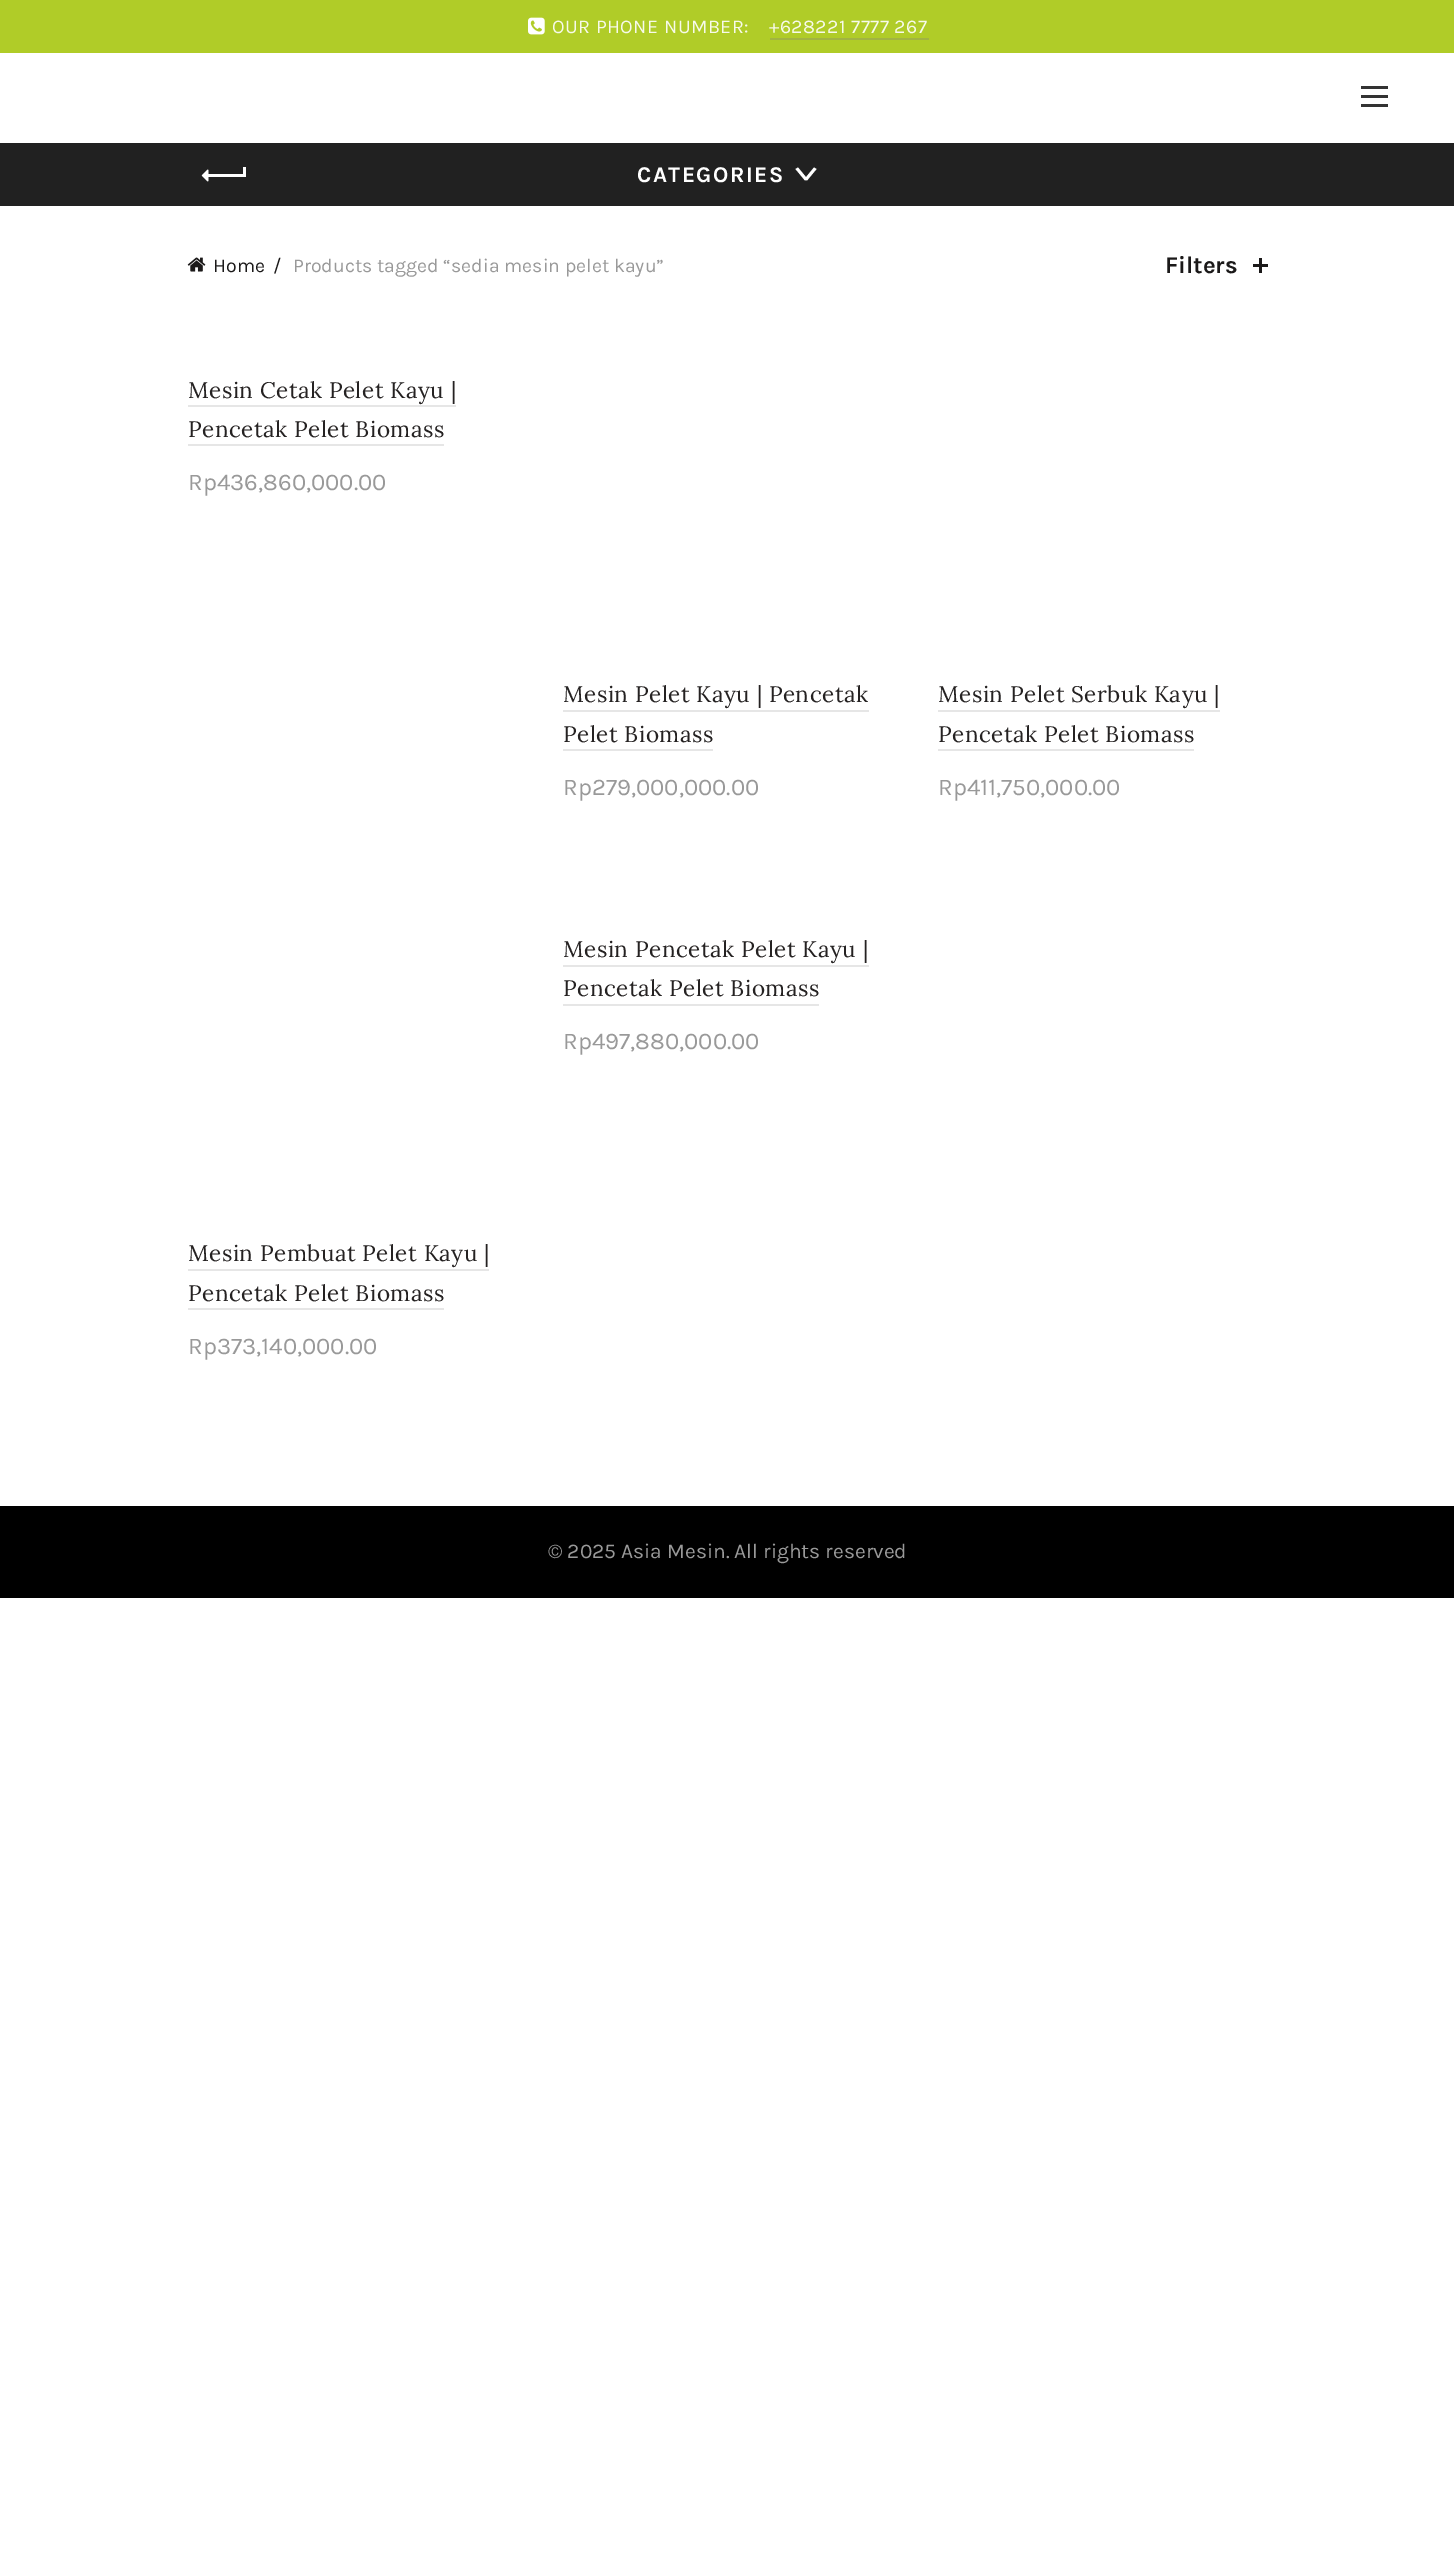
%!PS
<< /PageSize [1454 2575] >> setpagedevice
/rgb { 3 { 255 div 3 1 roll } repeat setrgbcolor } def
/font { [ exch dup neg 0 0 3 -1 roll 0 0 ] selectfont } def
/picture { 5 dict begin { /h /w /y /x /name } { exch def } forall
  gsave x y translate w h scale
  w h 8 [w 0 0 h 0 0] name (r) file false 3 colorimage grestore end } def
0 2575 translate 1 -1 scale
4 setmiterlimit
255 255 255 rgb
0 0 1454 2575 rectfill
176 204 40 rgb
0 0 1454 53 rectfill
(img/1.rgb) 528 17 17 18 picture
[
  [770 38 159 2 161 180 66]
  [1361 95 27 3 51 51 51]
  [1361 86 27 3 51 51 51]
  [1361 104 27 3 51 51 51]
  [0 143 1454 63 33 33 33]
  [207 174 38 3 255 255 255]
] { aload pop rgb rectfill } forall
(img/2.rgb) 201 169 8 13 picture
243 167 3 10 rectfill
804.5 179 moveto 814 167.5 lineto 816.5 169 lineto 807 180.5 lineto closepath fill
798 167.5 moveto 807.5 179 lineto 805 180.5 lineto 795.5 169 lineto closepath fill
(img/3.rgb) 187 257 19 15 picture
[
  [1259 258 3 15 27 25 25]
  [1253 264 15 3 27 25 25]
  [188 405 268 2 230 230 230]
  [188 444 256 2 230 230 230]
  [563 710 306 2 230 230 230]
  [563 749 150 2 230 230 230]
  [938 710 282 2 230 230 230]
  [938 749 256 2 230 230 230]
  [563 965 306 2 230 230 230]
  [563 1004 256 2 230 230 230]
  [188 1269 301 2 230 230 230]
  [188 1308 256 2 230 230 230]
  [0 1506 1454 92 0 0 0]
] { aload pop rgb rectfill } forall
/Karla-Regular 19.5 font
247 250 234 rgb
552 33 moveto 0.45 0 (OUR PHONE NUMBER:) ashow
769 33 moveto 0.45 0 (+628221 7777 267) ashow
/Karla-Bold 22.5 font
255 255 255 rgb
637 182 moveto 1.5 0 (CATEGORIES) ashow
/Karla-Regular 19.5 font
27 25 25 rgb
213 272 moveto (Home) show
273 272 moveto (/) show
153 153 153 rgb
293 272 moveto (Products tagged “sedia mesin pelet kayu”) show
/Karla-Bold 24 font
27 25 25 rgb
1165 273 moveto (Filters) show
/Lora-Regular 22.5 font
37 34 34 rgb
188 398 moveto 0.45 0 (Mesin Cetak Pelet Kayu |) ashow
188 437 moveto 0.45 0 (Pencetak Pelet Biomass) ashow
/Karla-Regular 24 font
153 153 153 rgb
188 490 moveto (Rp436,860,000.00) show
/Lora-Regular 22.5 font
37 34 34 rgb
563 702 moveto 0.45 0 (Mesin Pelet Kayu | Pencetak) ashow
563 742 moveto 0.45 0 (Pelet Biomass) ashow
/Karla-Regular 24 font
153 153 153 rgb
563 795 moveto (Rp279,000,000.00) show
/Lora-Regular 22.5 font
37 34 34 rgb
938 702 moveto 0.45 0 (Mesin Pelet Serbuk Kayu |) ashow
938 742 moveto 0.45 0 (Pencetak Pelet Biomass) ashow
/Karla-Regular 24 font
153 153 153 rgb
938 795 moveto (Rp411,750,000.00) show
/Lora-Regular 22.5 font
37 34 34 rgb
563 957 moveto 0.45 0 (Mesin Pencetak Pelet Kayu |) ashow
563 996 moveto 0.45 0 (Pencetak Pelet Biomass) ashow
/Karla-Regular 24 font
153 153 153 rgb
563 1049 moveto (Rp497,880,000.00) show
/Lora-Regular 22.5 font
37 34 34 rgb
188 1261 moveto 0.45 0 (Mesin Pembuat Pelet Kayu |) ashow
188 1301 moveto 0.45 0 (Pencetak Pelet Biomass) ashow
/Karla-Regular 24 font
153 153 153 rgb
188 1354 moveto (Rp373,140,000.00) show
/Karla-Regular 21 font
548 1558 moveto (© 2025 Asia Mesin. All rights reserved) show
showpage
